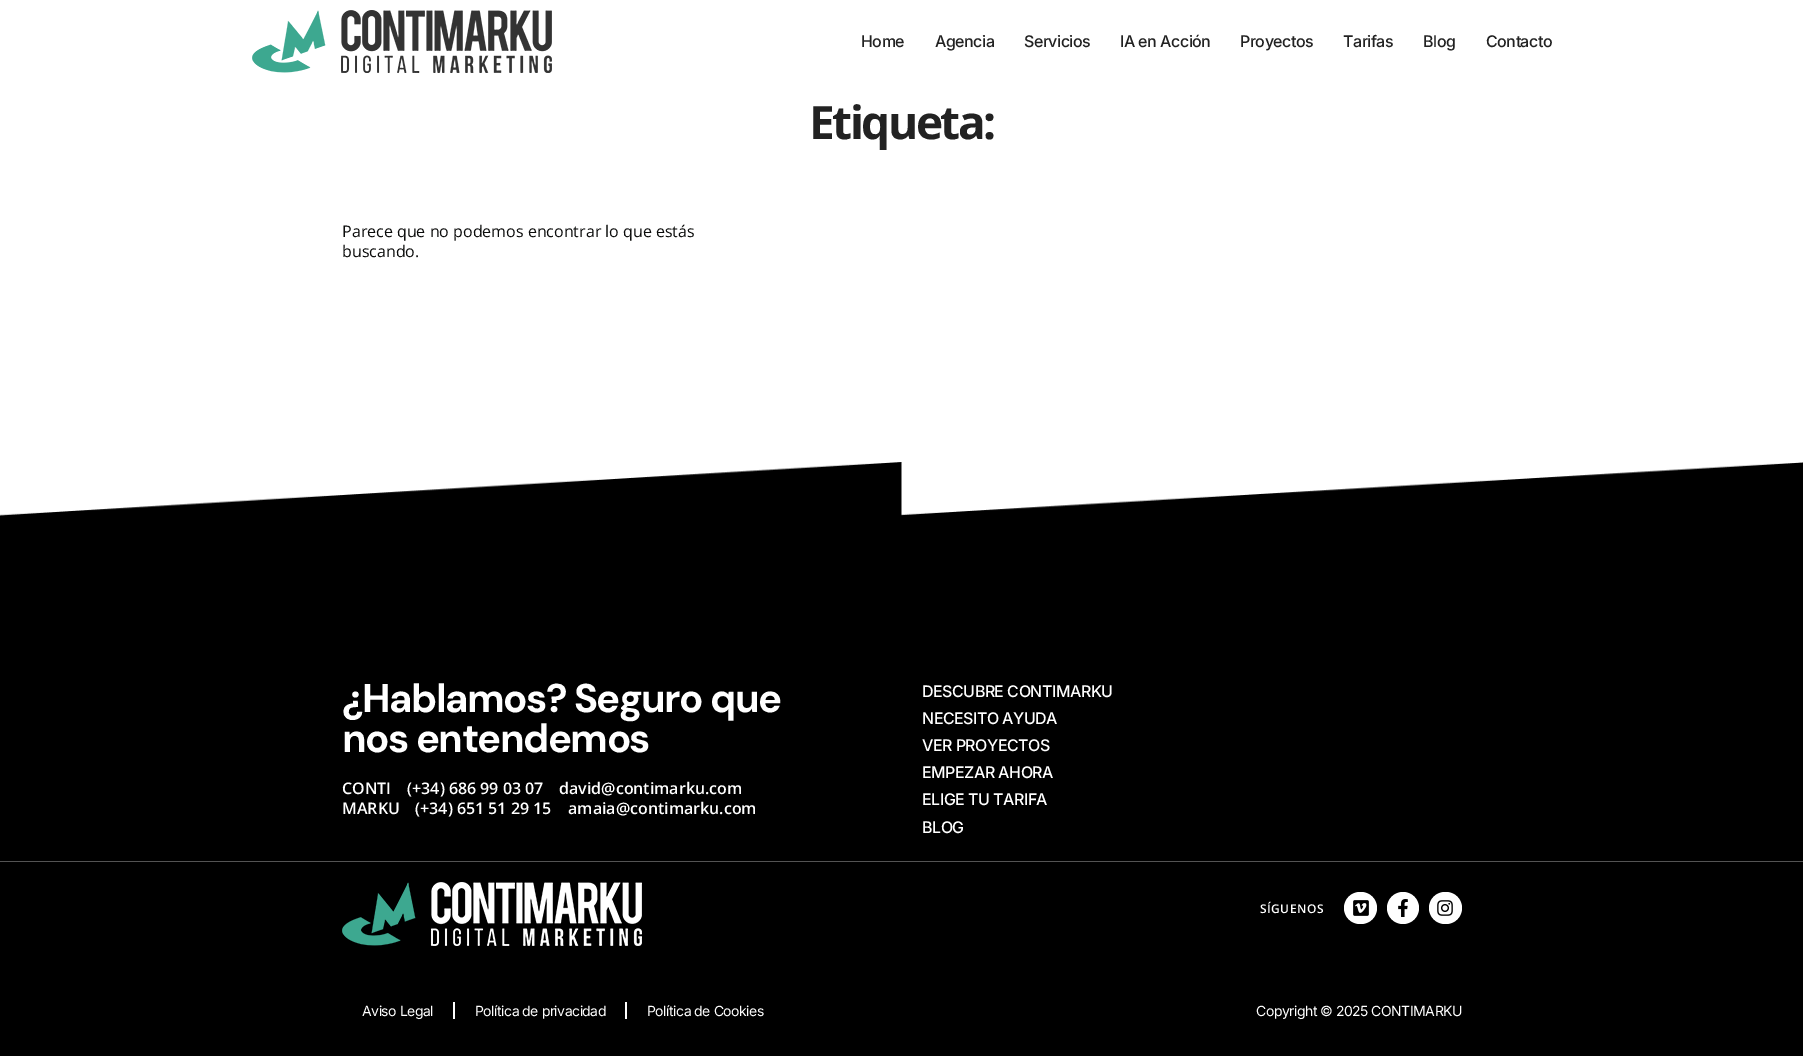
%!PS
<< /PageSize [1803 1056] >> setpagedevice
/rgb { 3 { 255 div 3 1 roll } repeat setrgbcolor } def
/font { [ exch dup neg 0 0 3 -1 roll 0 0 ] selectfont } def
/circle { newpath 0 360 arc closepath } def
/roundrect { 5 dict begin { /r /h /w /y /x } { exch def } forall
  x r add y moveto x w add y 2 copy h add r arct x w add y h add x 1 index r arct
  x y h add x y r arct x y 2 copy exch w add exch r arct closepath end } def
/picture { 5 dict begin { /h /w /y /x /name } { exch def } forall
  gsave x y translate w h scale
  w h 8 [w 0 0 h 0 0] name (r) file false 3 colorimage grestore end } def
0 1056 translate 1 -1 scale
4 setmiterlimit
255 255 255 rgb
0 0 1803 1056 rectfill
(img/1.rgb) 252 10 300 63 picture
(img/2.rgb) 0 462 1803 196 picture
[
  [0 658 1803 203 0 0 0]
  [0 861 1803 1 83 83 83]
  [0 862 1803 194 0 0 0]
] { aload pop rgb rectfill } forall
(img/3.rgb) 342 882 300 64 picture
255 255 255 rgb
1344 892 33 32 16 roundrect fill
(img/4.rgb) 1353 900 16 16 picture
1403 908 16 circle fill
(img/5.rgb) 1398 899 10 18 picture
1429 892 33 32 16 roundrect fill
(img/6.rgb) 1437 900 16 16 picture
453 1002 2 17 rectfill
625 1002 2 17 rectfill
/Inter-Medium 16 font
34 34 34 rgb
861 47 moveto -0.5 0 (Home) ashow
935 47 moveto -0.5 0 (Agencia) ashow
1024 47 moveto -0.5 0 (Servicios) ashow
1120 47 moveto -0.5 0 (IA en Acción) ashow
1240 47 moveto -0.5 0 (Proyectos) ashow
1343 47 moveto -0.5 0 (Tarifas) ashow
1423 47 moveto -0.5 0 (Blog) ashow
1486 47 moveto -0.5 0 (Contacto) ashow
/OpenSans-Bold 46 font
809 139 moveto -2.5 0 (Etiqueta:) ashow
/OpenSans-Regular 16 font
11 12 11 rgb
342 237 moveto (Parece que no podemos encontrar lo que estás) show
342 257 moveto (buscando.) show
/DMSans-Bold 40 font
255 255 255 rgb
342 712 moveto -1.5 0 (¿Hablamos? Seguro que) ashow
342 752 moveto -1.5 0 (nos entendemos) ashow
/OpenSans-SemiBold 16 font
[
  [(CONTI) 342 794]
  [(\(+34\) 686 99 03 07) 407 794]
  [(david@contimarku.com) 559 794]
  [(MARKU) 342 814]
  [(\(+34\) 651 51 29 15) 415 814]
  [(amaia@contimarku.com) 568 814]
] { aload pop moveto show } forall
/Inter-Medium 16 font
922 697 moveto -0.5 0 (DESCUBRE CONTIMARKU) ashow
922 724 moveto -0.5 0 (NECESITO AYUDA) ashow
922 751 moveto -0.5 0 (VER PROYECTOS) ashow
922 778 moveto -0.5 0 (EMPEZAR AHORA) ashow
922 805 moveto -0.5 0 (ELIGE TU TARIFA) ashow
922 833 moveto -0.5 0 (BLOG) ashow
/OpenSans-SemiBold 12 font
1260 913 moveto 0.5 0 (SÍGUENOS) ashow
/Inter-Regular 14 font
362 1016 moveto -0.5 0 (Aviso Legal) ashow
475 1016 moveto -0.5 0 (Política de privacidad) ashow
647 1016 moveto -0.5 0 (Política de Cookies) ashow
1256 1016 moveto -0.5 0 (Copyright © 2025 CONTIMARKU) ashow
showpage
